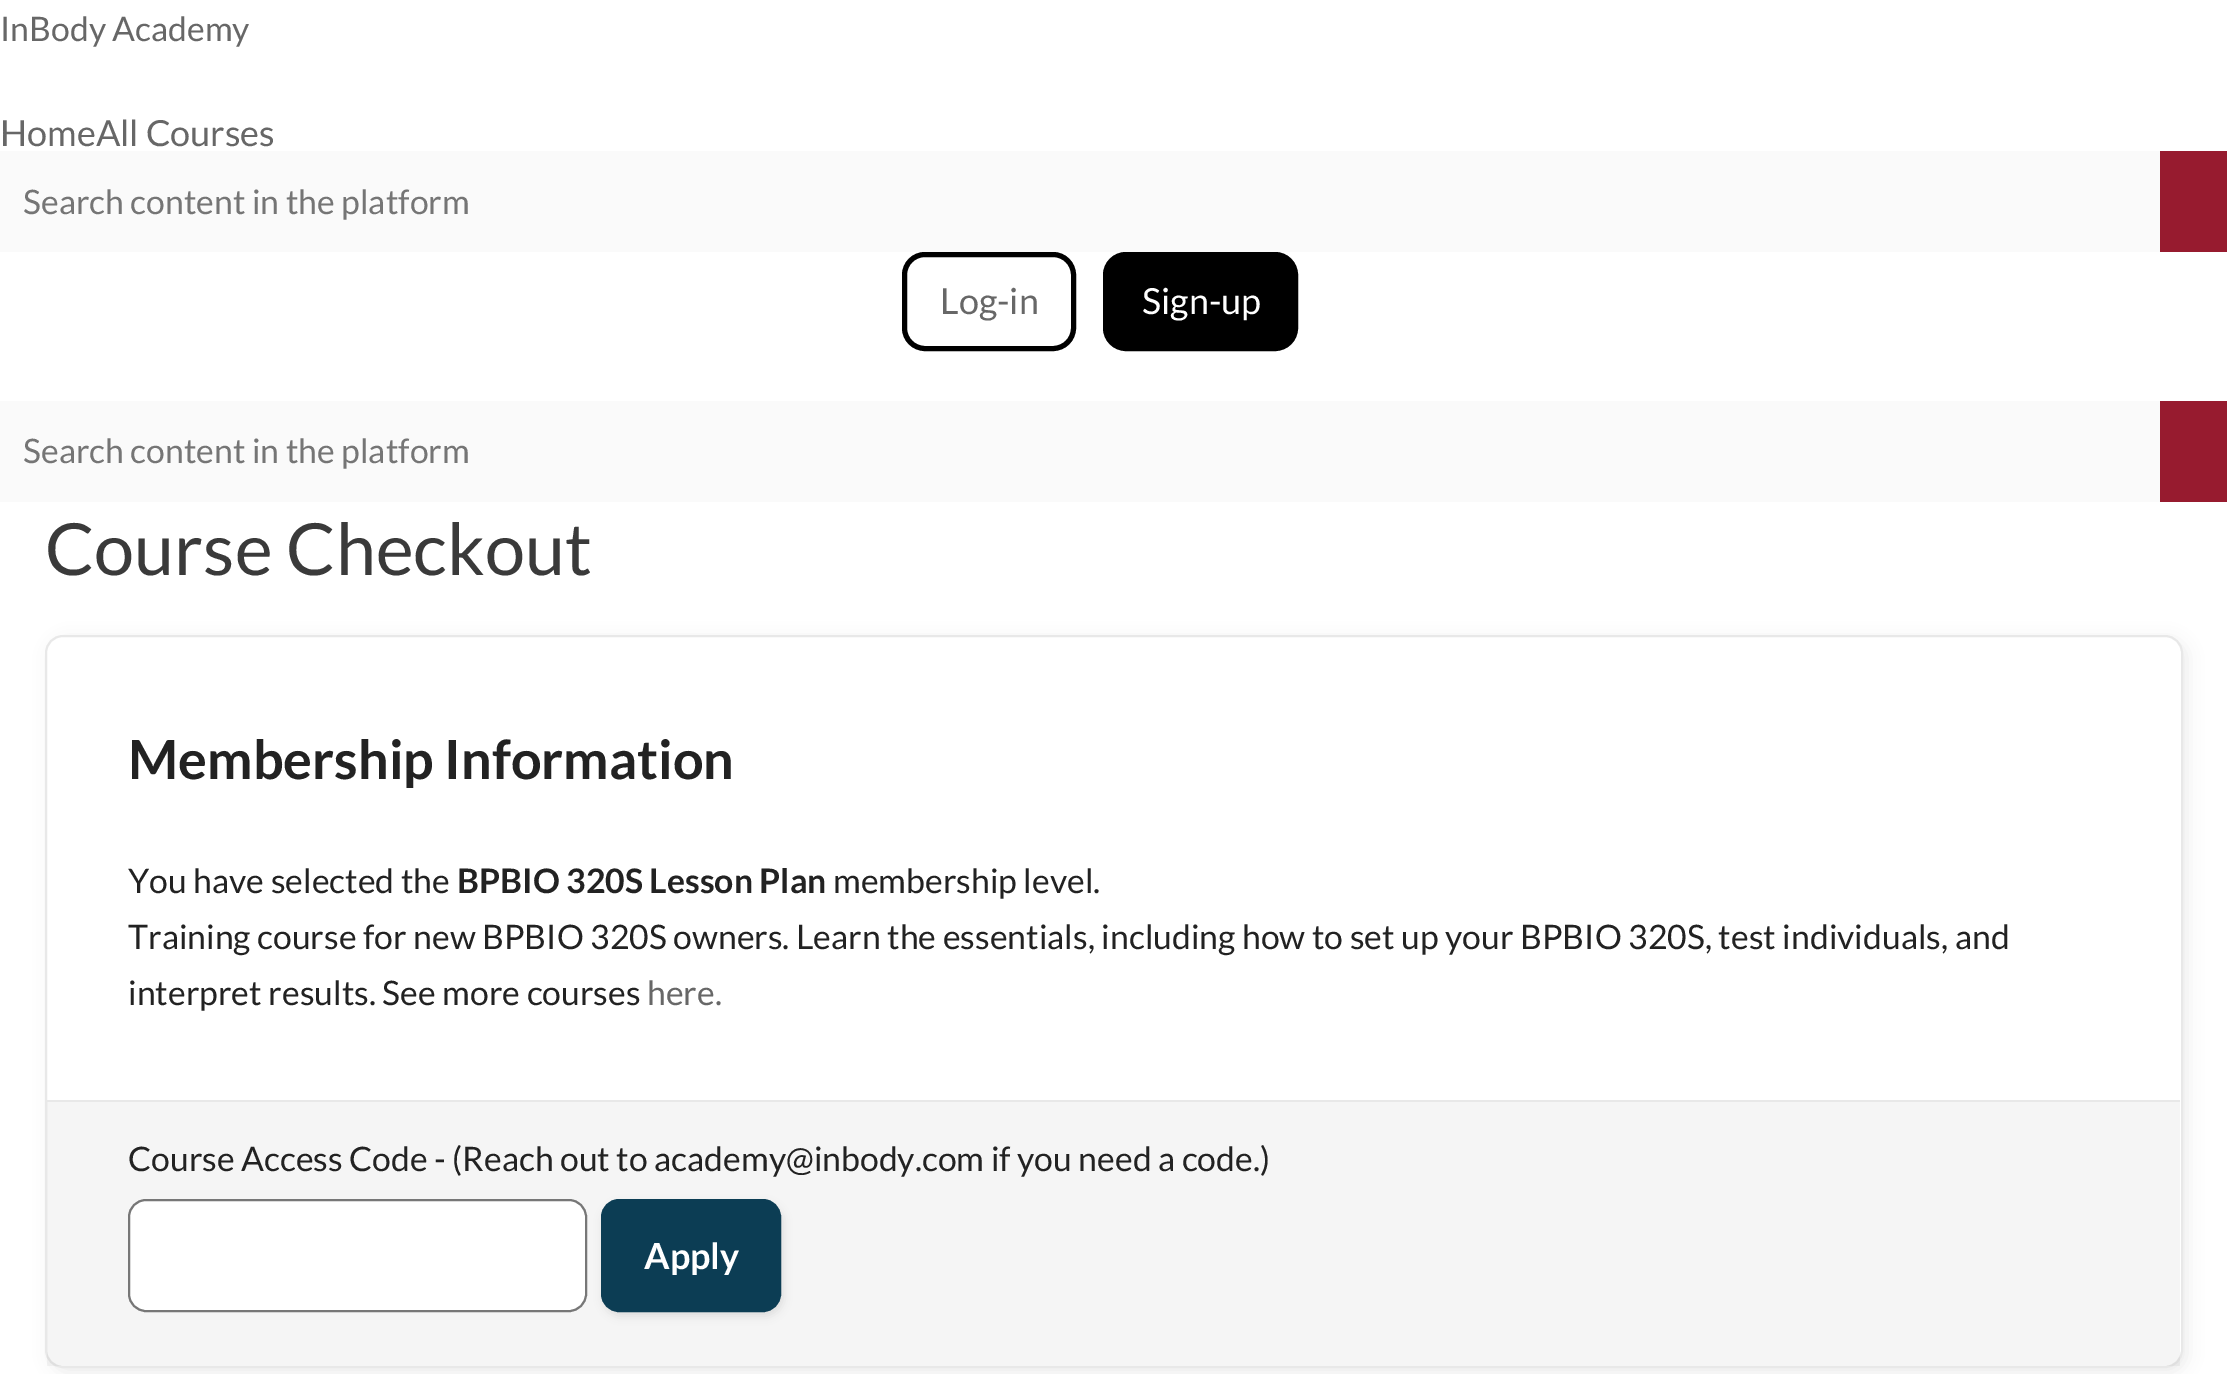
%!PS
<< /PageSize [2227 1374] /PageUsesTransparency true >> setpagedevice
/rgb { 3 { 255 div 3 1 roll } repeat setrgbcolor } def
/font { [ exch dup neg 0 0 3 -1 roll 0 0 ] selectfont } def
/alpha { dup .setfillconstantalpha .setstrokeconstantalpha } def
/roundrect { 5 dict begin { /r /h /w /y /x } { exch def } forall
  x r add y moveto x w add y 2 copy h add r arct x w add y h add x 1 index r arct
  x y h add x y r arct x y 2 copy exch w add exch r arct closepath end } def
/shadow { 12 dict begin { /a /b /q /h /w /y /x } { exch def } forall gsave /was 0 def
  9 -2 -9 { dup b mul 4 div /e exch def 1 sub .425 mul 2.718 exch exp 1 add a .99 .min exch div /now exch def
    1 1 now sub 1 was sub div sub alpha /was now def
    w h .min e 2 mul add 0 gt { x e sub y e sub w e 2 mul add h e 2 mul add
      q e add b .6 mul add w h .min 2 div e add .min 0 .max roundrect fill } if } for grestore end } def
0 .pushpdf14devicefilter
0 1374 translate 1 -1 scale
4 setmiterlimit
255 255 255 rgb
0 0 2227 1374 rectfill
250 250 250 rgb
0 151 2160 101 rectfill
151 27 47 rgb
2160 151 67 101 rectfill
0 0 0 rgb
5 setlinewidth
904.5 254.5 169 94 20.5 roundrect stroke
1105.5 254.5 190 94 20.5 roundrect gsave fill grestore
stroke
250 250 250 rgb
0 401 2160 101 rectfill
151 27 47 rgb
2160 401 67 101 rectfill
0 0 0 rgb
50 639 2137 734 18 8 0.07 shadow
255 255 255 rgb
46 636 2136 731 17 roundrect gsave fill grestore
232 232 232 rgb
2 setlinewidth
stroke
0.04 alpha
0 0 0 rgb
47 1102 2133 264 rectfill
1 alpha
232 232 232 rgb
47 1100 2133 2 rectfill
255 255 255 rgb
129 1200 457 111 17 roundrect gsave fill grestore
119 119 119 rgb
stroke
0 0 0 rgb
603 1204 180 112 18 4.5 0.1 shadow
12 61 84 rgb
602 1200 178 111 17 roundrect gsave fill grestore
stroke
/Lato-Regular 33.75 font
103 103 103 rgb
0 41 moveto (InBody Academy) show
/Lato-Regular 36 font
0 146 moveto (HomeAll Courses) show
/Lato-Regular 33.75 font
117 117 117 rgb
23 214 moveto (Search content in the platform) show
/Lato-Regular 36 font
103 103 103 rgb
940 314 moveto (Log-in) show
255 255 255 rgb
1142 314 moveto (Sign-up) show
/Lato-Regular 33.75 font
117 117 117 rgb
23 463 moveto (Search content in the platform) show
/Lato-Regular 72 font
58 58 58 rgb
45 575 moveto (Course Checkout) show
/Lato-Bold 54 font
34 34 34 rgb
128 779 moveto (Membership Information) show
/Lato-Regular 33.75 font
128 893 moveto (You have selected the) show
/Lato-Bold 33.75 font
457 893 moveto (BPBIO 320S Lesson Plan) show
/Lato-Regular 33.75 font
[
  [(membership level.) 833 893]
  [(Training course for new BPBIO 320S owners. Learn the essentials, including how to set up your BPBIO 320S, test individuals, and) 128 949]
  [(interpret results. See more courses) 128 1005]
] { aload pop moveto show } forall
103 103 103 rgb
647 1005 moveto (here.) show
34 34 34 rgb
128 1171 moveto (Course Access Code - \(Reach out to academy@inbody.com if you need a code.\)) show
/Lato-Bold 36 font
255 255 255 rgb
644 1269 moveto (Apply) show
.poppdf14devicefilter showpage
